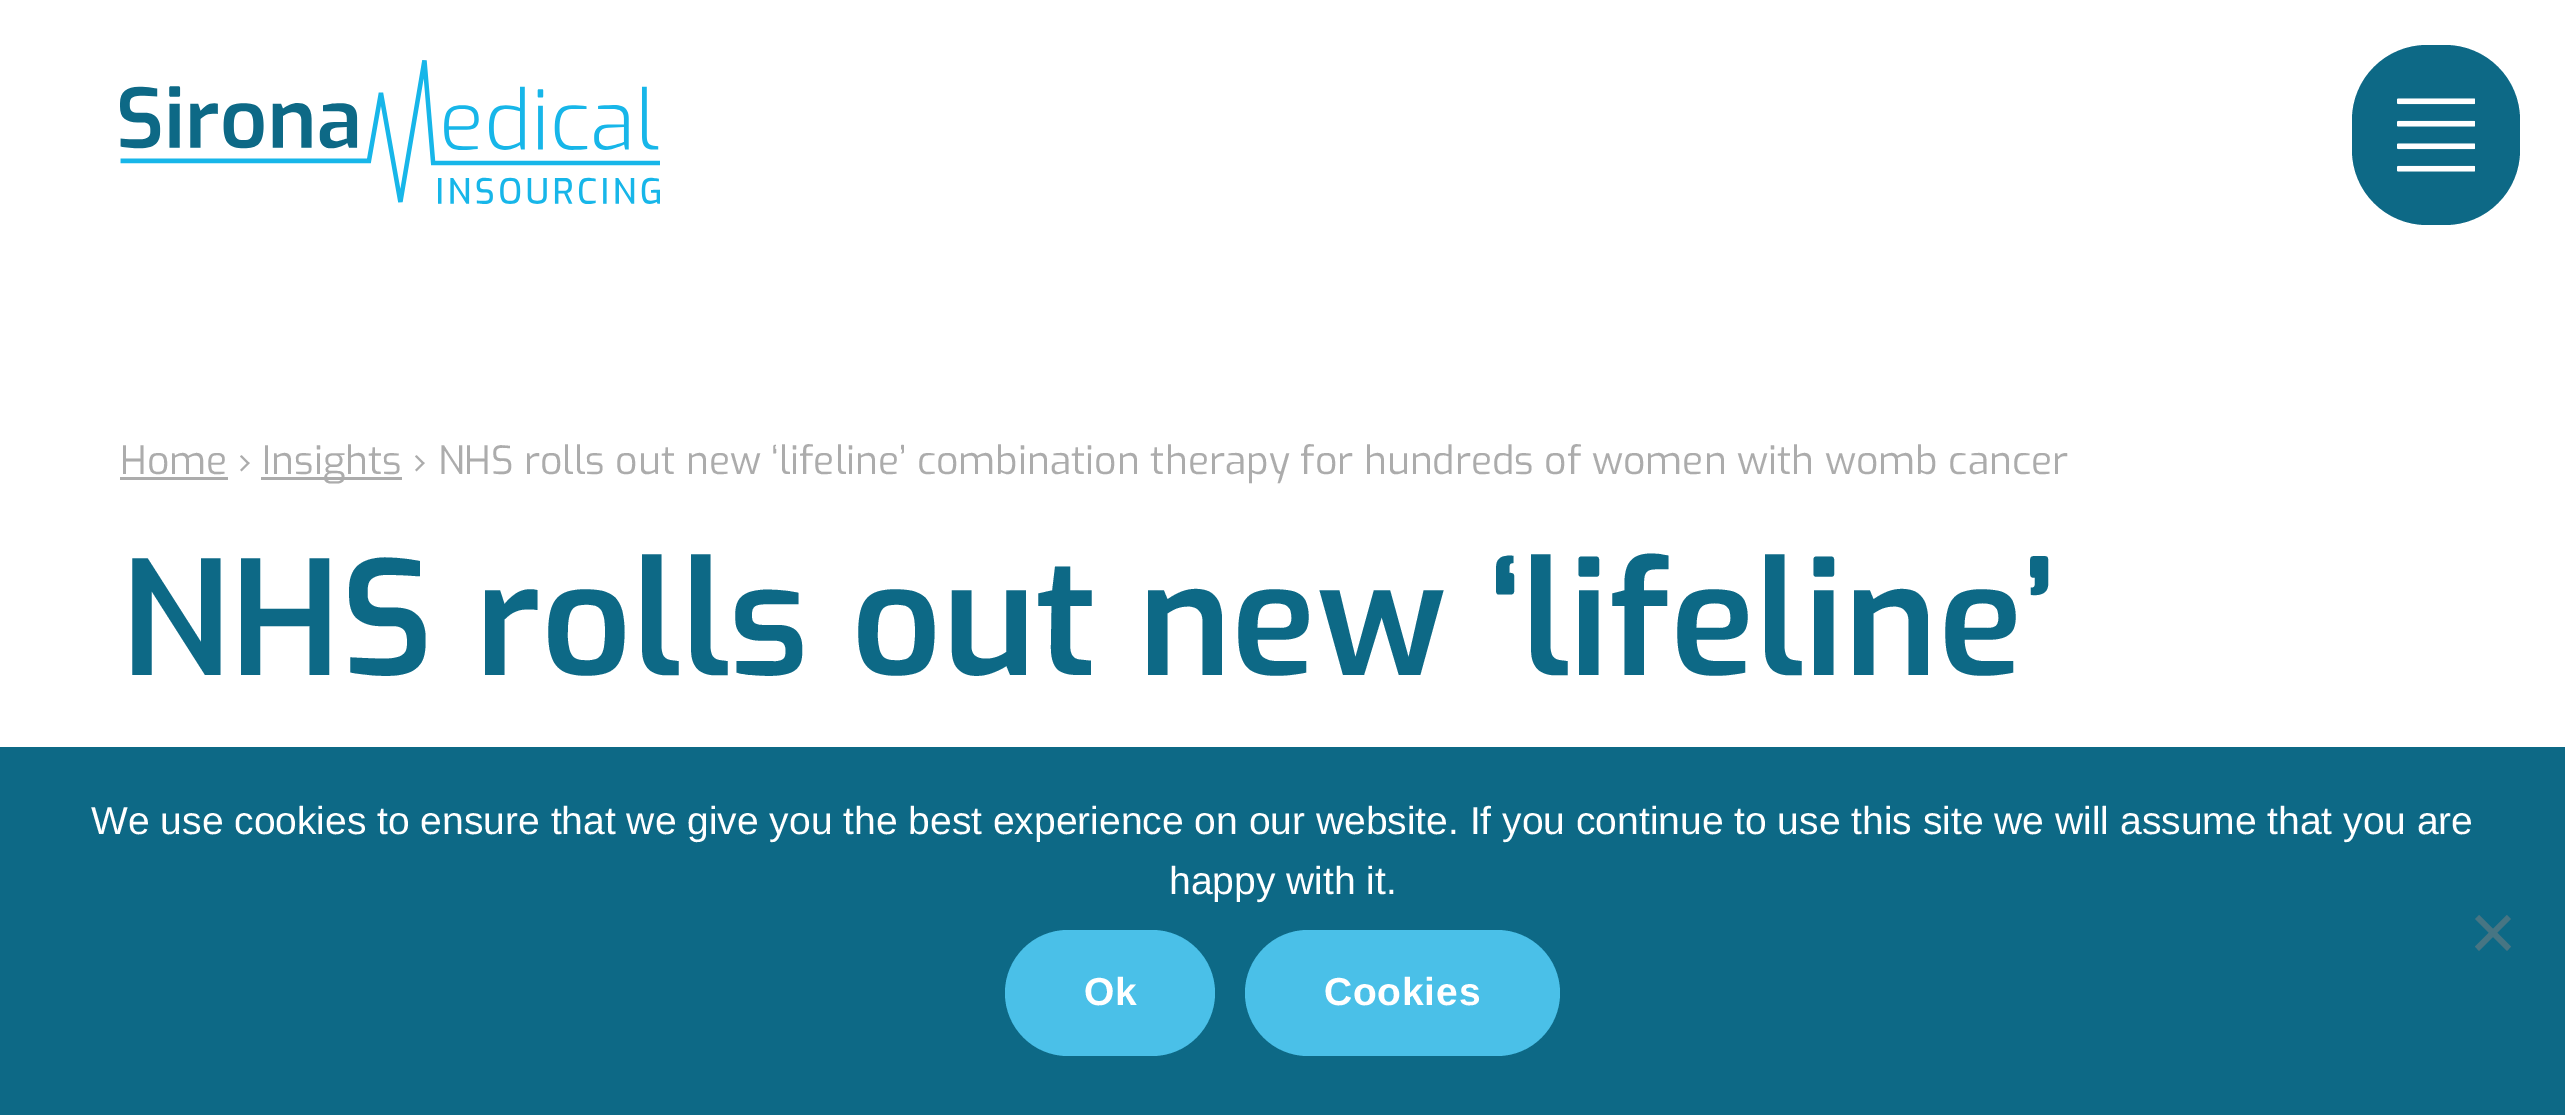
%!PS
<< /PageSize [2565 1115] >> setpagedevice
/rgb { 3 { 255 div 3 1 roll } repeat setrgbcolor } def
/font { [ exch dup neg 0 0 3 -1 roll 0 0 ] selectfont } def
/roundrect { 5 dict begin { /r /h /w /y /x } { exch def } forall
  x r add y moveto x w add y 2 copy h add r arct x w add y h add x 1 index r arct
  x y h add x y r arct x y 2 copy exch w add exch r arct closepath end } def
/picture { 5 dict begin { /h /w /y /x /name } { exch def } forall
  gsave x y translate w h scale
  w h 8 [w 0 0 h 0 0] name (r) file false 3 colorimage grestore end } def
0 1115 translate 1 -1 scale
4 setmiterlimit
255 255 255 rgb
0 0 2565 1115 rectfill
(img/1.rgb) 120 60 540 144 picture
13 105 134 rgb
2352 45 168 180 75 roundrect fill
(img/2.rgb) 2397 98 78 74 picture
[
  [120 477 108 3 172 172 172]
  [261 477 141 3 172 172 172]
  [0 747 2565 368 13 105 134]
] { aload pop rgb rectfill } forall
71 117 131 rgb
2507 915 moveto 2511 919 lineto 2479 951 lineto 2475 946.5 lineto closepath fill
2475 919 moveto 2479 915 lineto 2511 946.5 lineto 2507 951 lineto closepath fill
74 192 232 rgb
1005 930 210 126 63 roundrect fill
1245 930 315 126 63 roundrect fill
/Exo-Regular 39 font
172 172 172 rgb
[
  [(Home) 120 474]
  [(›) 238 474]
  [(Insights) 262 474]
  [(› NHS rolls out new ‘lifeline’ combination therapy for hundreds of women with womb cancer) 413 474]
] { aload pop moveto show } forall
/Exo-SemiBold 158.4 font
13 105 134 rgb
120 675 moveto (NHS rolls out new ‘lifeline’) show
/LiberationSans-Regular 39 font
255 255 255 rgb
91 834 moveto (We use cookies to ensure that we give you the best experience on our website. If you continue to use this site we will assume that you are) show
1169 894 moveto (happy with it.) show
/LiberationSans-Bold 39 font
1084 1005 moveto 0.75 0 (Ok) ashow
1324 1005 moveto 0.75 0 (Cookies) ashow
showpage
